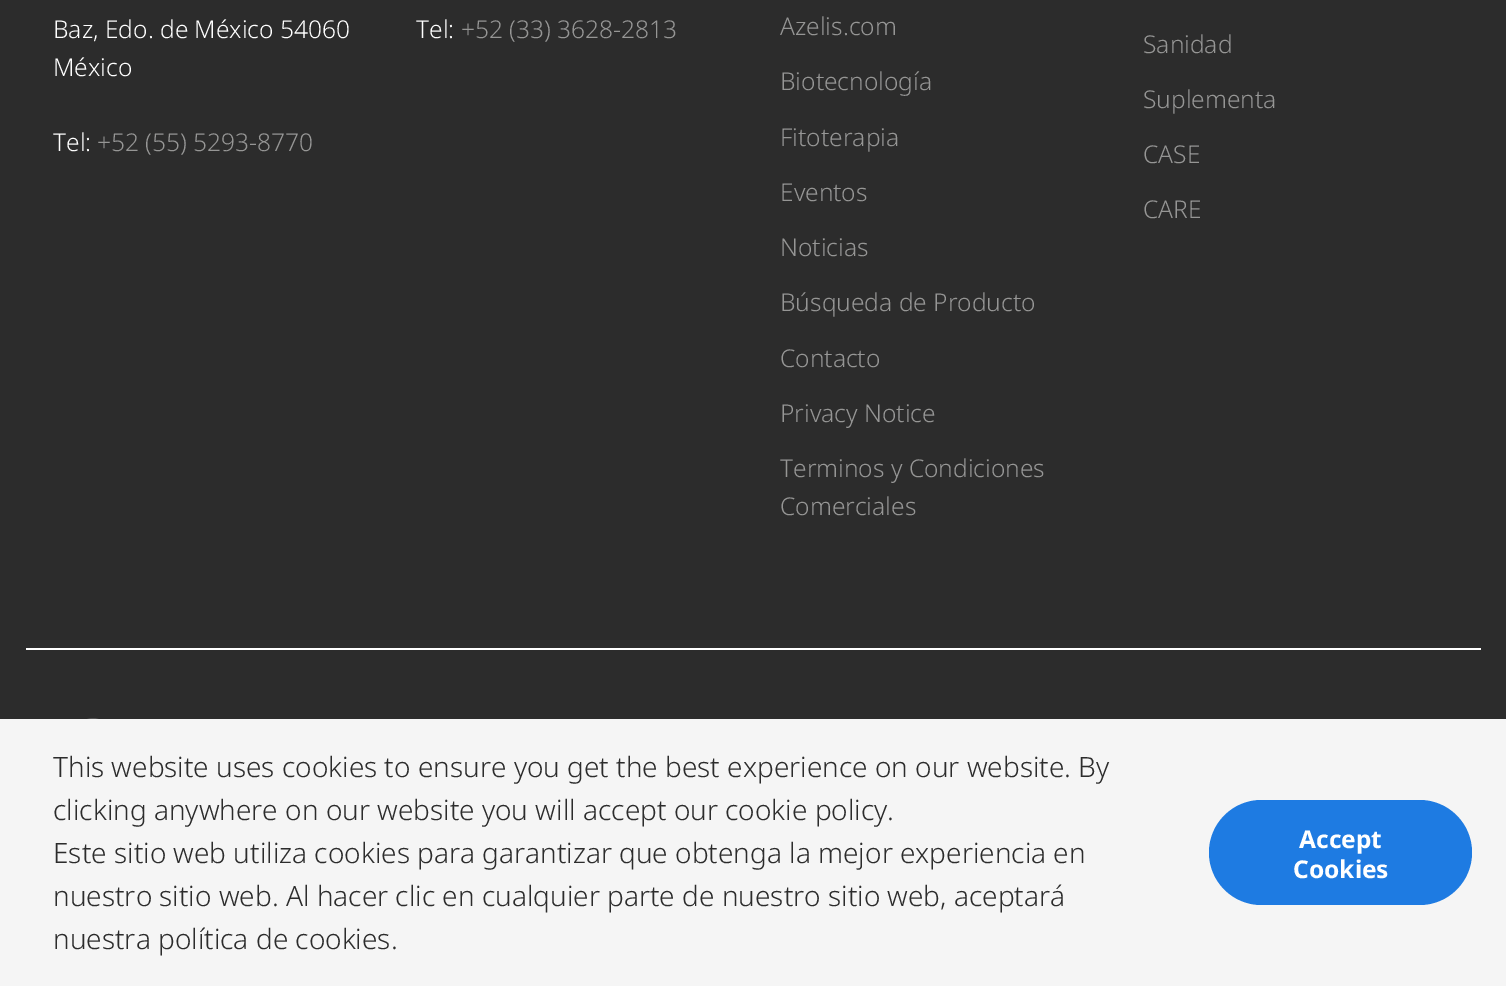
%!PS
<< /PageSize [1506 986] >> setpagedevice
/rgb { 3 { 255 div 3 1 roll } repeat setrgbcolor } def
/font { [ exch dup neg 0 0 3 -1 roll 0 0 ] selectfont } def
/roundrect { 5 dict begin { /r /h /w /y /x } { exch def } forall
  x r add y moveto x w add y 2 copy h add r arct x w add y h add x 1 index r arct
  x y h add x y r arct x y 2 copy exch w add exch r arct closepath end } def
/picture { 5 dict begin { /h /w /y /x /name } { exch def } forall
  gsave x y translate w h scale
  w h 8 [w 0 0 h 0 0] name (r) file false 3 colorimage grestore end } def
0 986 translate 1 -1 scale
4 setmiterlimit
44 44 44 rgb
0 0 1506 986 rectfill
255 255 255 rgb
26 648 1455 2 rectfill
(img/1.rgb) 87 718 12 1 picture
245 245 245 rgb
0 719 1506 267 rectfill
30 123 226 rgb
1209 800 263 105 52.5 roundrect fill
/NotoSans-Light 24.5 font
255 255 255 rgb
[
  [(Baz, Edo. de México 54060) 53 38]
  [(México) 53 76]
  [(Tel:) 53 151]
] { aload pop moveto show } forall
150 150 149 rgb
97 151 moveto (+52 \(55\) 5293-8770) show
255 255 255 rgb
416 38 moveto (Tel:) show
150 150 149 rgb
[
  [(+52 \(33\) 3628-2813) 461 38]
  [(Azelis.com) 780 35]
  [(Biotecnología) 780 90]
  [(Fitoterapia) 780 146]
  [(Eventos) 780 201]
  [(Noticias) 780 256]
  [(Búsqueda de Producto) 780 311]
  [(Contacto) 780 367]
  [(Privacy Notice) 780 422]
  [(Terminos y Condiciones) 780 477]
  [(Comerciales) 780 515]
  [(Sanidad) 1143 53]
  [(Suplementa) 1143 108]
  [(CASE) 1143 163]
  [(CARE) 1143 218]
] { aload pop moveto show } forall
/NotoSans-Light 28 font
44 44 44 rgb
[
  [(This website uses cookies to ensure you get the best experience on our website. By) 53 777]
  [(clicking anywhere on our website you will accept our cookie policy.) 53 820]
  [(Este sitio web utiliza cookies para garantizar que obtenga la mejor experiencia en) 53 863]
  [(nuestro sitio web. Al hacer clic en cualquier parte de nuestro sitio web, aceptará) 53 906]
  [(nuestra política de cookies.) 53 949]
] { aload pop moveto show } forall
/NotoSans-Bold 24.5 font
255 255 255 rgb
1299 848 moveto (Accept) show
1293 878 moveto (Cookies) show
showpage
